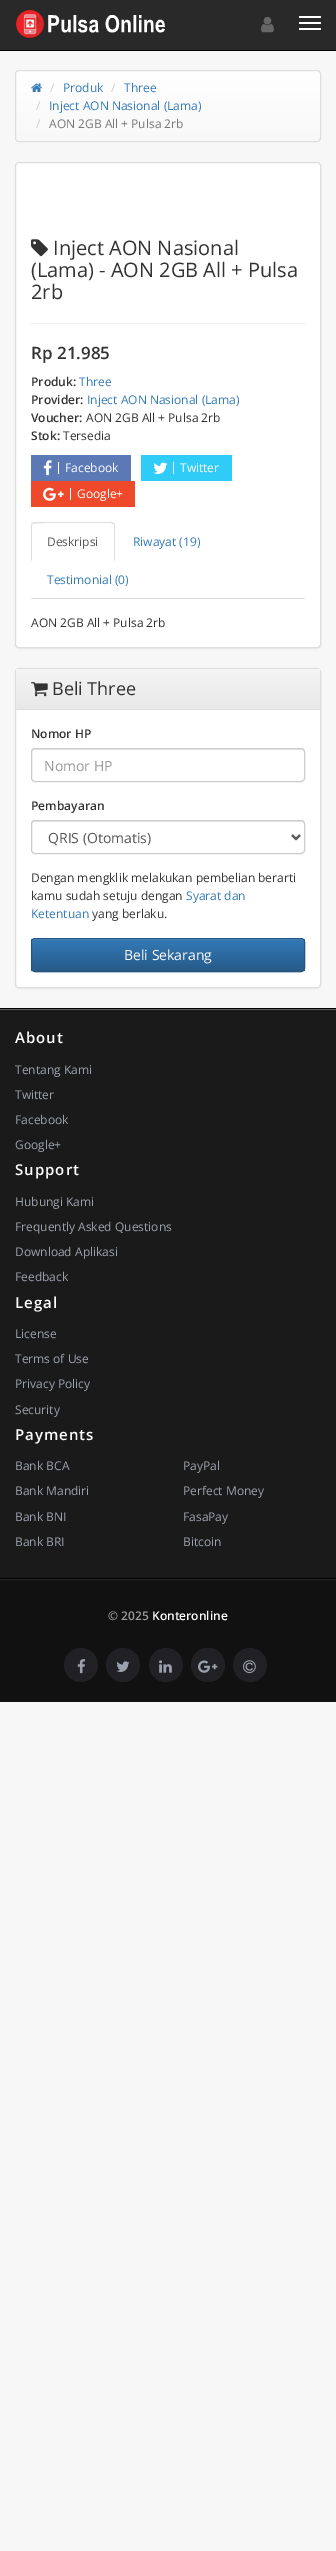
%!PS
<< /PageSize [336 2551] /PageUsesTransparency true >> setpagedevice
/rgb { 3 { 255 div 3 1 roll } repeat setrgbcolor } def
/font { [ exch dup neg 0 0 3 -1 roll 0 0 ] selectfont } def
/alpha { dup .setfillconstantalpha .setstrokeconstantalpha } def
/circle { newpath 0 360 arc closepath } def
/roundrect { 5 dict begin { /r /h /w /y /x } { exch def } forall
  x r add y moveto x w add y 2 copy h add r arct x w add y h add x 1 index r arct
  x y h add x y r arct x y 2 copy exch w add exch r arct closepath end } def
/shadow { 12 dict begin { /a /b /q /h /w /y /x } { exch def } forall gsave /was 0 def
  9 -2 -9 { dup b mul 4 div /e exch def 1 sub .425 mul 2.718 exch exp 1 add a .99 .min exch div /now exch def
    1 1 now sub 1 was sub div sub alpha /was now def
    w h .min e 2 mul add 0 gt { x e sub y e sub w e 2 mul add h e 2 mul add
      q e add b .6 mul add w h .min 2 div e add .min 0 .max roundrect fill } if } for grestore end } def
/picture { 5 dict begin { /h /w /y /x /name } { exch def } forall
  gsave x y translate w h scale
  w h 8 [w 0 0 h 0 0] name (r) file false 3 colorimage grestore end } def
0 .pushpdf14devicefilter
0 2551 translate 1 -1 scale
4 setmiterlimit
247 247 247 rgb
0 0 336 2551 rectfill
41 41 41 rgb
0 0 336 50 rectfill
0 0 0 rgb
0 50 336 1 rectfill
(img/1.rgb) 15 9 150 30 picture
(img/2.rgb) 261 16 13 17 picture
255 255 255 rgb
299 16 22 2 1 roundrect fill
299 22 22 2 1 roundrect fill
299 28 22 2 1 roundrect fill
gsave
15 70 306 72 4 roundrect clip newpath
gsave 15 71 moveto 321 71 lineto 321 141 lineto 15 141 lineto closepath clip newpath
<< /ShadingType 2 /ColorSpace /DeviceRGB /Coords [168 71 168 141] /Extend [true true] /Function << /FunctionType 2 /Domain [0 1] /C0 [1 1 1] /C1 [0.973 0.973 0.973] /N 1 >> >> shfill grestore
grestore
221 221 221 rgb
15.5 70.5 305 71 3.5 roundrect stroke
(img/3.rgb) 31 83 11 9 picture
0 0 0 rgb
15 163 306 486 4 1 0.05 shadow
255 255 255 rgb
15.5 162.5 305 485 3.5 roundrect gsave fill grestore
221 221 221 rgb
stroke
(img/4.rgb) 31 239 17 18 picture
[
  [31 323 274 1 238 238 238]
  [31 455 100 26 91 121 180]
  [58 462 1 12 255 255 255]
] { aload pop rgb rectfill } forall
(img/5.rgb) 43 460 9 16 picture
47 204 247 rgb
141 455 91 26 rectfill
255 255 255 rgb
173 462 1 12 rectfill
(img/6.rgb) 153 462 15 12 picture
237 73 42 rgb
31 481 104 26 rectfill
255 255 255 rgb
70 488 1 12 rectfill
(img/7.rgb) 43 487 21 14 picture
221 221 221 rgb
31 598 274 1 rectfill
35 522 moveto 32 523 lineto 33 524 lineto 35 522 91 523 98 523 curveto 111 523 lineto 113 524 lineto 114 523 lineto 111 522 lineto closepath fill
115 561 moveto 115 526 lineto 115 525 114.5 524 114 523 curveto 113 524 lineto 114 524 114 525 114 526 curveto 114 560 lineto closepath fill
31 561 moveto 32 560 lineto 32 526 lineto 32 525 32 524 33 524 curveto 32 523 lineto 31.5 524 31 525 31 526 curveto closepath fill
0 0 0 rgb
15 669 306 320 4 1 0.05 shadow
255 255 255 rgb
15.5 668.5 305 319 3.5 roundrect gsave fill grestore
221 221 221 rgb
stroke
gsave 19 669 moveto 317 669 lineto 318.5 669 320 670.5 320 672 curveto 320 709 lineto 16 709 lineto 16 672 lineto 16 670.5 17.5 669 19 669 curveto closepath clip newpath
<< /ShadingType 2 /ColorSpace /DeviceRGB /Coords [168 669 168 709] /Extend [true true] /Function << /FunctionType 2 /Domain [0 1] /C0 [0.961 0.961 0.961] /C1 [0.91 0.91 0.91] /N 1 >> >> shfill grestore
16 709 304 1 rectfill
(img/8.rgb) 31 682 17 15 picture
236 236 236 rgb
35 750 moveto 301 750 lineto 303 750 304 751 304 753 curveto 304 752 lineto 304 750 303 749 301 749 curveto 35 749 lineto 33 749 32 750 32 752 curveto 32 753 lineto 32 751 33 750 35 750 curveto closepath fill
204 204 204 rgb
31.5 748.5 273 33 3.5 roundrect stroke
236 236 236 rgb
35 822 moveto 301 822 lineto 303 822 304 823 304 825 curveto 304 824 lineto 304 822 303 821 301 821 curveto 35 821 lineto 33 821 32 822 32 824 curveto 32 825 lineto 32 823 33 822 35 822 curveto closepath fill
204 204 204 rgb
31.5 820.5 273 33 3.5 roundrect stroke
85 85 85 rgb
2 setlinewidth
292 835 moveto 296 839 lineto 300 835 lineto stroke
0 0 0 rgb
31 939 274 34 4 0.5 0.07 shadow
gsave
31 938 274 34 4 roundrect clip newpath
gsave 31 939 moveto 305 939 lineto 305 971 lineto 31 971 lineto closepath clip newpath
<< /ShadingType 2 /ColorSpace /DeviceRGB /Coords [168 939 168 971] /Extend [true true] /Function << /FunctionType 2 /Domain [0 1] /C0 [0.2 0.478 0.718] /C1 [0.149 0.353 0.533] /N 1 >> >> shfill grestore
grestore
82 142 193 rgb
35 940 moveto 301 940 lineto 303 940 304 941 304 943 curveto 304 942 lineto 304 940 303 939 301 939 curveto 35 939 lineto 33 939 32 940 32 942 curveto 32 943 lineto 32 941 33 940 35 940 curveto closepath fill
36 85 128 rgb
1 setlinewidth
31.5 938.5 273 33 3.5 roundrect stroke
[
  [0 1010 336 568 26 26 26]
  [0 1009 336 1 95 95 95]
  [0 1008 336 1 0 0 0]
  [0 1580 336 122 17 17 17]
  [0 1579 336 1 41 41 41]
  [0 1578 336 1 0 0 0]
] { aload pop rgb rectfill } forall
33 33 37 rgb
81 1665 17 circle fill
(img/9.rgb) 77 1659 8 15 picture
123 1665 17 circle fill
(img/10.rgb) 116 1661 14 11 picture
166 1665 17 circle fill
(img/11.rgb) 159 1660 13 13 picture
208 1665 17 circle fill
(img/12.rgb) 198 1660 20 13 picture
250 1665 17 circle fill
(img/13.rgb) 243 1660 13 14 picture
/OpenSans-Regular 12 font
204 204 204 rgb
50 92 moveto (/) show
51 122 183 rgb
63 92 moveto (Produk) show
204 204 204 rgb
111 92 moveto (/) show
51 122 183 rgb
124 92 moveto (Three) show
204 204 204 rgb
36 110 moveto (/) show
51 122 183 rgb
49 110 moveto (Inject AON Nasional \(Lama\)) show
204 204 204 rgb
36 128 moveto (/) show
119 119 119 rgb
49 128 moveto (AON 2GB All + Pulsa 2rb) show
/OpenSans-Regular 20 font
51 51 51 rgb
[
  [(Inject AON Nasional) 53 255]
  [(\(Lama\) - AON 2GB All + Pulsa) 31 277]
  [(2rb) 31 299]
] { aload pop moveto show } forall
/OpenSans-SemiBold 17 font
31 359 moveto (Rp 21.985) show
/OpenSans-SemiBold 12 font
31 386 moveto (Produk:) show
/OpenSans-Regular 12 font
51 122 183 rgb
79 386 moveto (Three) show
/OpenSans-SemiBold 12 font
51 51 51 rgb
31 404 moveto (Provider:) show
/OpenSans-Regular 12 font
51 122 183 rgb
87 404 moveto (Inject AON Nasional \(Lama\)) show
/OpenSans-SemiBold 12 font
51 51 51 rgb
31 422 moveto (Voucher:) show
/OpenSans-Regular 12 font
86 422 moveto (AON 2GB All + Pulsa 2rb) show
/OpenSans-SemiBold 12 font
31 440 moveto (Stok:) show
/OpenSans-Regular 12 font
63 440 moveto (Tersedia) show
255 255 255 rgb
[
  [(Facebook) 65 472]
  [(Twitter) 180 472]
  [(Google+) 77 498]
] { aload pop moveto show } forall
85 85 85 rgb
47 546 moveto (Deskripsi) show
51 122 183 rgb
133 546 moveto (Riwayat \(19\)) show
47 584 moveto (Testimonial \(0\)) show
51 51 51 rgb
31 627 moveto (AON 2GB All + Pulsa 2rb) show
/OpenSans-Regular 18 font
52 695 moveto (Beli Three) show
/OpenSans-SemiBold 12 font
31 738 moveto (Nomor HP) show
/OpenSans-Regular 14 font
153 153 153 rgb
44 771 moveto (Nomor HP) show
/OpenSans-SemiBold 12 font
51 51 51 rgb
31 810 moveto (Pembayaran) show
/OpenSans-Regular 14 font
85 85 85 rgb
48 843 moveto (QRIS \(Otomatis\)) show
/OpenSans-Regular 12 font
51 51 51 rgb
31 882 moveto (Dengan mengklik melakukan pembelian berarti) show
31 900 moveto (kamu sudah setuju dengan) show
51 122 183 rgb
186 900 moveto (Syarat dan) show
31 918 moveto (Ketentuan) show
51 51 51 rgb
92 918 moveto (yang berlaku.) show
/OpenSans-Regular 14 font
255 255 255 rgb
124 960 moveto (Beli Sekarang) show
/OpenSans-SemiBold 15 font
15 1043 moveto 1 0 (About) ashow
/OpenSans-Regular 12 font
155 161 172 rgb
[
  [(Tentang Kami) 15 1074]
  [(Twitter) 15 1099]
  [(Facebook) 15 1124]
  [(Google+) 15 1149]
] { aload pop moveto show } forall
/OpenSans-SemiBold 15 font
255 255 255 rgb
15 1175 moveto 1 0 (Support) ashow
/OpenSans-Regular 12 font
155 161 172 rgb
[
  [(Hubungi Kami) 15 1206]
  [(Frequently Asked Questions) 15 1231]
  [(Download Aplikasi) 15 1256]
  [(Feedback) 15 1281]
] { aload pop moveto show } forall
/OpenSans-SemiBold 15 font
255 255 255 rgb
15 1308 moveto 1 0 (Legal) ashow
/OpenSans-Regular 12 font
155 161 172 rgb
[
  [(License) 15 1338]
  [(Terms of Use) 15 1363]
  [(Privacy Policy) 15 1388]
  [(Security) 15 1414]
] { aload pop moveto show } forall
/OpenSans-SemiBold 15 font
255 255 255 rgb
15 1440 moveto 1 0 (Payments) ashow
/OpenSans-Regular 12 font
155 161 172 rgb
[
  [(Bank BCA) 15 1470]
  [(Bank Mandiri) 15 1495]
  [(Bank BNI) 15 1521]
  [(Bank BRI) 15 1546]
  [(PayPal) 183 1470]
  [(Perfect Money) 183 1495]
  [(FasaPay) 183 1521]
  [(Bitcoin) 183 1546]
] { aload pop moveto show } forall
/OpenSans-SemiBold 12 font
153 153 153 rgb
108 1620 moveto (© 2025) show
255 255 255 rgb
152 1620 moveto (Konteronline) show
.poppdf14devicefilter showpage
